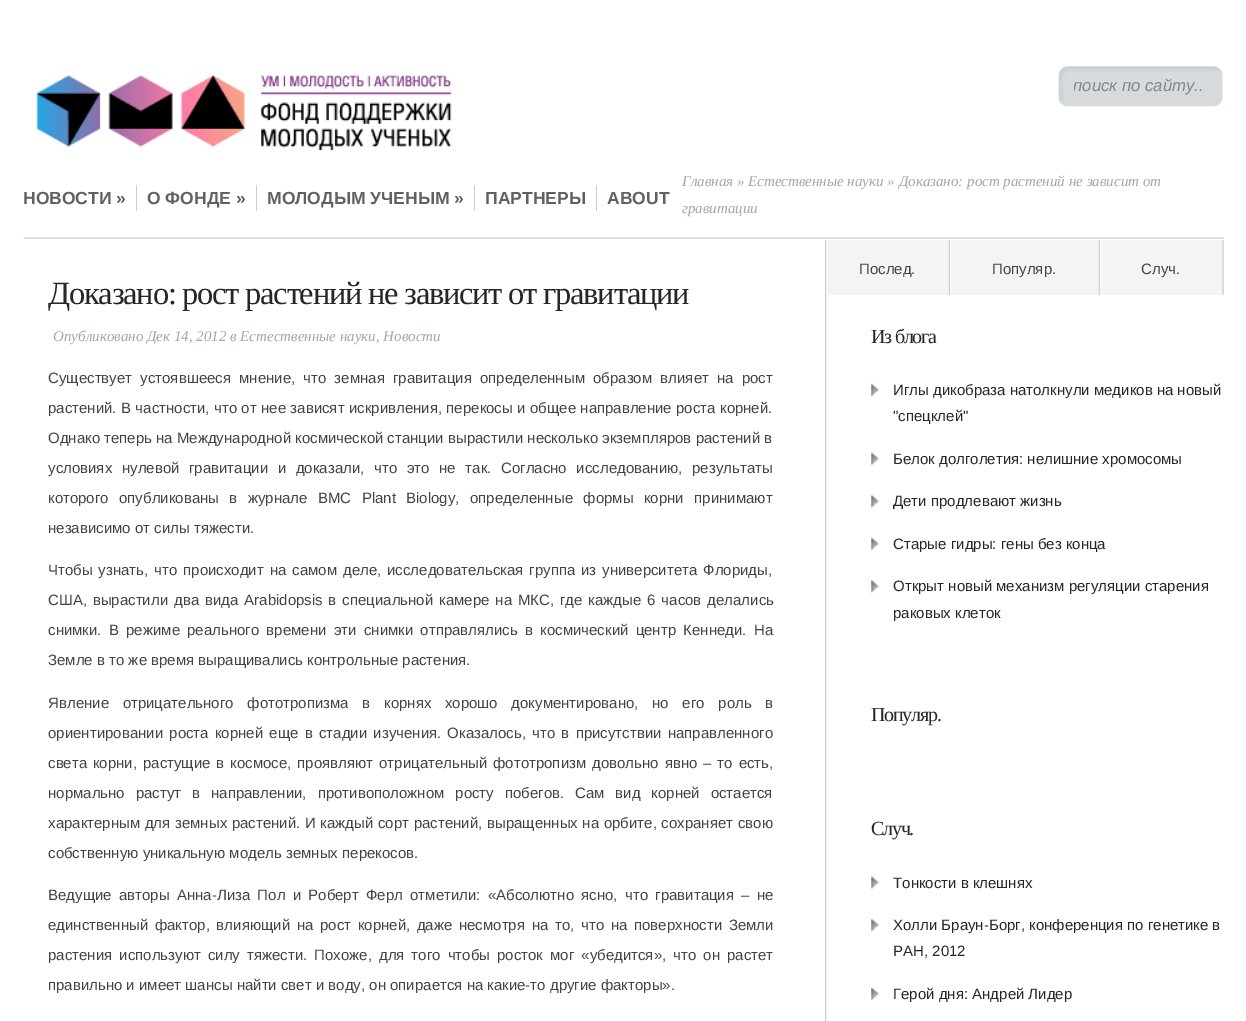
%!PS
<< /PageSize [1246 1021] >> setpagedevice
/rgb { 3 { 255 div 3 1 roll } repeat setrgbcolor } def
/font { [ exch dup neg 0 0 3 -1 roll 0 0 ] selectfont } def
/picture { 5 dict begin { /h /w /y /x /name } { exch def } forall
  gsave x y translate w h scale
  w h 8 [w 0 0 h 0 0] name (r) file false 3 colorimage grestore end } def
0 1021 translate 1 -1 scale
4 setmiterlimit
255 255 255 rgb
0 0 1246 1021 rectfill
(img/1.rgb) 36 75 416 76 picture
(img/2.rgb) 1058 66 165 41 picture
[
  [136 185 1 26 199 206 209]
  [256 185 1 26 199 206 209]
  [474 185 1 26 199 206 209]
  [596 185 1 26 199 206 209]
] { aload pop rgb rectfill } forall
(img/3.rgb) 23 237 1201 2 picture
(img/4.rgb) 825 240 2 781 picture
(img/5.rgb) 827 240 397 55 picture
(img/6.rgb) 871 383 8 14 picture
(img/7.rgb) 871 452 8 14 picture
(img/8.rgb) 871 495 8 13 picture
(img/7.rgb) 871 537 8 14 picture
(img/9.rgb) 871 580 8 13 picture
(img/10.rgb) 871 876 8 13 picture
(img/6.rgb) 871 918 8 14 picture
(img/7.rgb) 871 987 8 14 picture
gsave
1074 76 131 19 rectclip
/LiberationSans-Italic 16.75 font
125 137 144 rgb
1073 91 moveto (поиск по сайту...) show
grestore
/LiberationSans-Bold 17.5 font
97 97 97 rgb
[
  [(НОВОСТИ ») 23 204]
  [(О ФОНДЕ ») 147 204]
  [(МОЛОДЫМ УЧЕНЫМ ») 267 204]
  [(ПАРТНЕРЫ) 485 204]
  [(ABOUT) 607 204]
] { aload pop moveto show } forall
/LiberationSerif-Italic 15 font
160 167 172 rgb
682 186 moveto (Главная » Естественные науки » Доказано: рост растений не зависит от) show
682 213 moveto (гравитации) show
/LiberationSerif-Regular 32.5 font
38 38 38 rgb
48 304 moveto -1.25 0 (Доказано: рост растений не зависит от гравитации) ashow
/LiberationSerif-Italic 15 font
160 167 172 rgb
53 341 moveto (Опубликовано Дек 14, 2012 в Естественные науки, Новости) show
/LiberationSans-Regular 15 font
67 67 67 rgb
48 383 moveto 4 0 32 (Существует устоявшееся мнение, что земная гравитация определенным образом влияет на рост) widthshow
48 413 moveto 0.25 0 32 (растений. В частности, что от нее зависят искривления, перекосы и общее направление роста корней.) widthshow
48 443 moveto (Однако теперь на Международной космической станции вырастили несколько экземпляров растений в) show
48 473 moveto 5.5 0 32 (условиях нулевой гравитации и доказали, что это не так. Согласно исследованию, результаты) widthshow
48 503 moveto 6.25 0 32 (которого опубликованы в журнале BMC Plant Biology, определенные формы корни принимают) widthshow
48 533 moveto (независимо от силы тяжести.) show
48 575 moveto 1.75 0 32 (Чтобы узнать, что происходит на самом деле, исследовательская группа из университета Флориды,) widthshow
48 605 moveto 1.75 0 32 (США, вырастили два вида Arabidopsis в специальной камере на МКС, где каждые 6 часов делались) widthshow
48 635 moveto 3.1 0 32 (снимки. В режиме реального времени эти снимки отправлялись в космический центр Кеннеди. На) widthshow
48 665 moveto (Земле в то же время выращивались контрольные растения.) show
48 708 moveto 9.5 0 32 (Явление отрицательного фототропизма в корнях хорошо документировано, но его роль в) widthshow
48 738 moveto 2.1 0 32 (ориентировании роста корней еще в стадии изучения. Оказалось, что в присутствии направленного) widthshow
48 768 moveto 1.75 0 32 (света корни, растущие в космосе, проявляют отрицательный фототропизм довольно явно – то есть,) widthshow
48 798 moveto 6.75 0 32 (нормально растут в направлении, противоположном росту побегов. Сам вид корней остается) widthshow
48 828 moveto 0.5 0 32 (характерным для земных растений. И каждый сорт растений, выращенных на орбите, сохраняет свою) widthshow
48 858 moveto (собственную уникальную модель земных перекосов.) show
48 900 moveto 3.1 0 32 (Ведущие авторы Анна-Лиза Пол и Роберт Ферл отметили: «Абсолютно ясно, что гравитация – не) widthshow
48 930 moveto 2.5 0 32 (единственный фактор, влияющий на рост корней, даже несмотря на то, что на поверхности Земли) widthshow
48 960 moveto 2.9 0 32 (растения используют силу тяжести. Похоже, для того чтобы росток мог «убедится», что он растет) widthshow
[
  [(правильно и имеет шансы найти свет и воду, он опирается на какие-то другие факторы».) 48 990]
  [(Послед.) 859 274]
  [(Популяр.) 992 274]
  [(Случ.) 1141 274]
] { aload pop moveto show } forall
/LiberationSerif-Regular 20 font
38 38 38 rgb
871 343 moveto -1.25 0 (Из блога) ashow
/LiberationSans-Regular 15 font
[
  [(Иглы дикобраза натолкнули медиков на новый) 893 395]
  [("спецклей") 893 421]
  [(Белок долголетия: нелишние хромосомы) 893 464]
  [(Дети продлевают жизнь) 893 506]
  [(Старые гидры: гены без конца) 893 549]
  [(Открыт новый механизм регуляции старения) 893 591]
  [(раковых клеток) 893 618]
] { aload pop moveto show } forall
/LiberationSerif-Regular 20 font
871 721 moveto -1.25 0 (Популяр.) ashow
871 835 moveto -1.25 0 (Случ.) ashow
/LiberationSans-Regular 15 font
[
  [(Тонкости в клешнях) 893 888]
  [(Холли Браун-Борг, конференция по генетике в) 893 930]
  [(РАН, 2012) 893 956]
  [(Герой дня: Андрей Лидер) 893 999]
] { aload pop moveto show } forall
showpage
